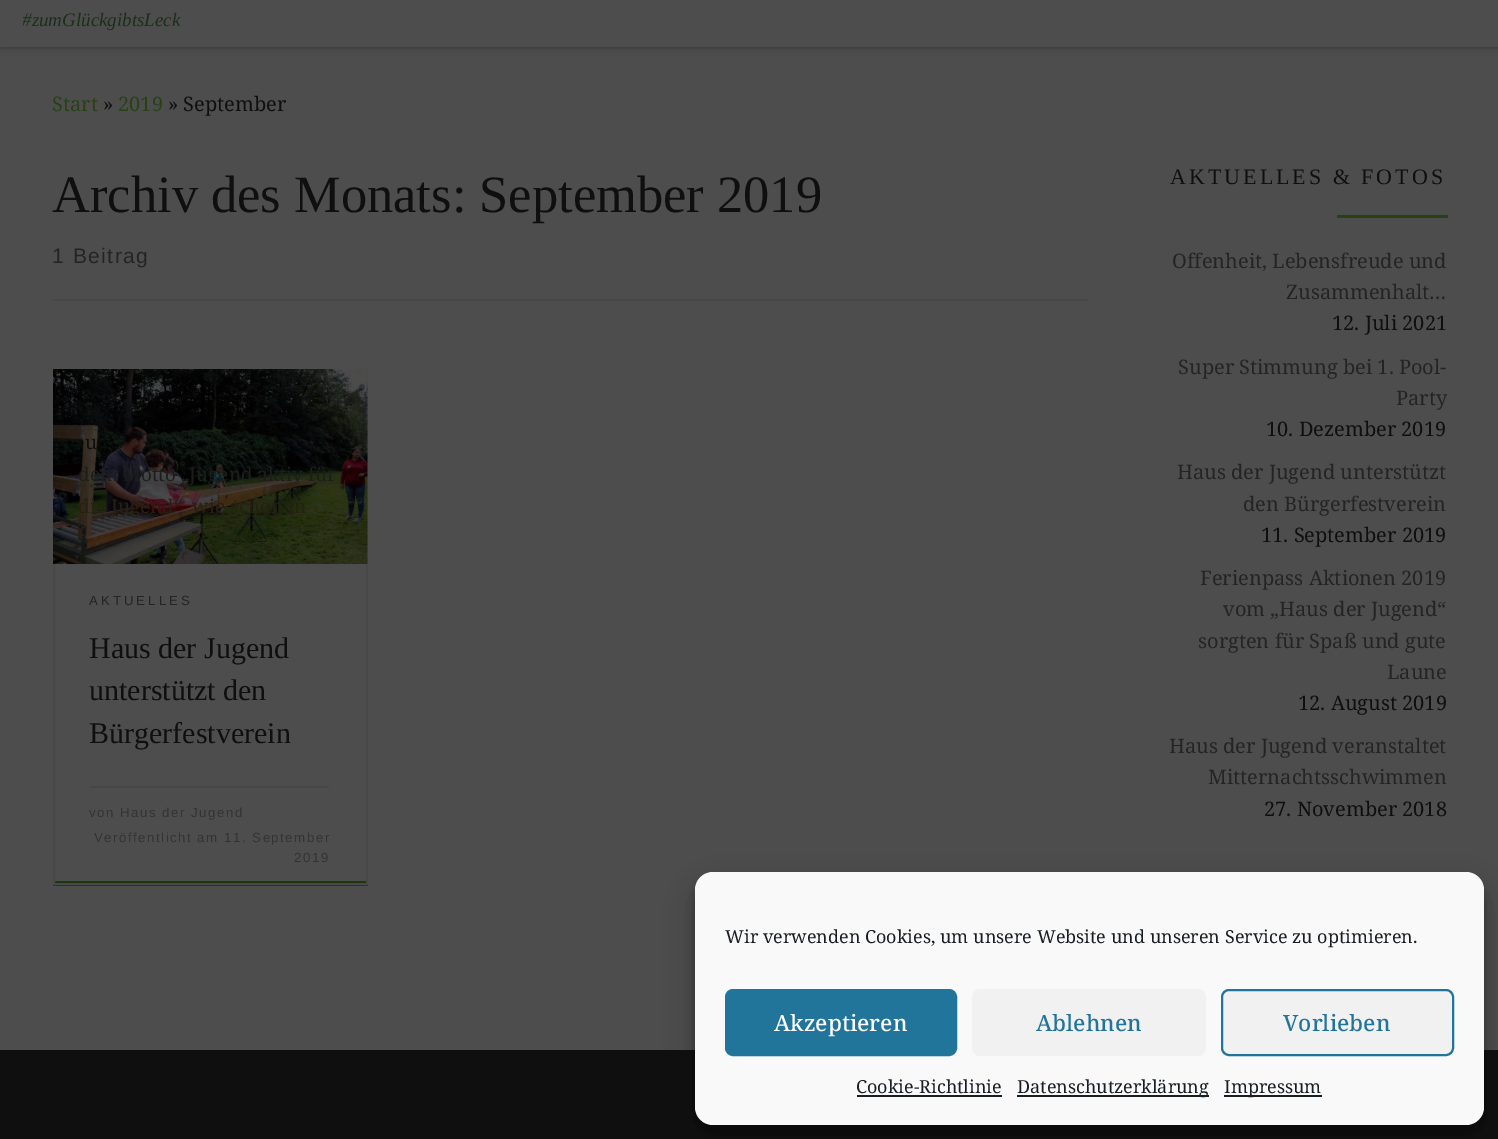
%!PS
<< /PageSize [1498 1139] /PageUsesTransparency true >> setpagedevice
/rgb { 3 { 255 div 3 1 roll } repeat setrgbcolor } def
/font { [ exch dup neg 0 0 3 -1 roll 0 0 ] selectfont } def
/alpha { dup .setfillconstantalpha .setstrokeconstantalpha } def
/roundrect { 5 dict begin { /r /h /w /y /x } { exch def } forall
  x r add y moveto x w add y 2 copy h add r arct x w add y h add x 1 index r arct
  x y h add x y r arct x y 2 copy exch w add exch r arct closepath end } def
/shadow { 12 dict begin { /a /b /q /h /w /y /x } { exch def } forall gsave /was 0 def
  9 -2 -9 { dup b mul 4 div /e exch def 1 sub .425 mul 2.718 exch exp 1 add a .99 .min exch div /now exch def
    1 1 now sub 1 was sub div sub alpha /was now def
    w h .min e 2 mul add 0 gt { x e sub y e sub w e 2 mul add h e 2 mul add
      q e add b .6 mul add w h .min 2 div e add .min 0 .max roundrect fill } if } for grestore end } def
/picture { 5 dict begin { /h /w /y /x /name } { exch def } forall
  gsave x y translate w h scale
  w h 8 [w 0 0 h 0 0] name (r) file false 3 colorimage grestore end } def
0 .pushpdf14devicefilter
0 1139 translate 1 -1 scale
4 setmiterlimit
77 77 77 rgb
0 0 1498 1139 rectfill
0.09 alpha
4 33 5 rgb
0 47 1498 2 rectfill
1 alpha
0 0 0 rgb
0 -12 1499 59 0 4 0.2 shadow
[
  [0 0 1498 47 77 77 77]
  [53 299 1035 2 71 71 72]
  [53 881 315 5 30 54 11]
] { aload pop rgb rectfill } forall
72 72 72 rgb
2 setlinewidth
54 370 313 514 rectstroke
(img/1.rgb) 53 369 315 195 picture
[
  [90 786 239 2 71 71 72]
  [1337 215 111 3 39 65 20]
  [0 1050 1498 89 15 15 15]
] { aload pop rgb rectfill } forall
0 0 0 rgb
695 881 789 253 18 4.5 0.23 shadow
695 887 789 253 18 15 0.19 shadow
249 249 249 rgb
695 872 789 253 18 roundrect fill
33 117 155 rgb
726 990 230 65 7 roundrect gsave fill grestore
stroke
241 241 241 rgb
972 989 234 67 8 roundrect fill
1222 990 231 65 7 roundrect gsave fill grestore
33 117 155 rgb
stroke
[
  [857 1095 145 2 25 30 35]
  [1017 1095 192 2 25 30 35]
  [1224 1095 98 2 25 30 35]
] { aload pop rgb rectfill } forall
gsave
23 0 450 47 rectclip
/LiberationSerif-Italic 19 font
26 46 26 rgb
22 26 moveto (#zumGlückgibtsLeck) show
grestore
/NotoSerif-Regular 20 font
39 65 20 rgb
52 111 moveto (Start) show
15 15 15 rgb
103 111 moveto (») show
39 65 20 rgb
118 111 moveto (2019) show
15 15 15 rgb
168 111 moveto (» September) show
/LiberationSerif-Regular 52.5 font
52 212 moveto (Archiv des Monats: September 2019) show
/LiberationSans-Regular 21 font
36 36 36 rgb
52 263 moveto 1.5 0 (1 Beitrag) ashow
/NotoSerif-Regular 19 font
15 15 15 rgb
85 449 moveto (u) show
27 30 26 rgb
78 481 moveto (dem Motto „Jugend aktiv für) show
39 31 20 rgb
78 513 moveto (die Jugend“  wie schon in) show
/LiberationSans-Regular 13.25 font
36 36 36 rgb
89 605 moveto 3 0 (AKTUELLES) ashow
/LiberationSerif-Regular 30 font
15 15 15 rgb
[
  [(Haus der Jugend) 89 658]
  [(unterstützt den) 89 700]
  [(Bürgerfestverein) 89 743]
] { aload pop moveto show } forall
/LiberationSans-Regular 13.25 font
51 51 51 rgb
89 817 moveto 1.5 0 (von Haus der Jugend) ashow
94 842 moveto 1.5 0 (Veröffentlicht am 11. September) ashow
294 862 moveto 1.5 0 (2019) ashow
/LiberationSerif-Regular 22 font
15 15 15 rgb
1170 184 moveto 3 0 (AKTUELLES & FOTOS) ashow
/NotoSerif-Regular 20 font
36 36 36 rgb
1172 268 moveto (Offenheit, Lebensfreude und) show
1286 299 moveto (Zusammenhalt…) show
15 15 15 rgb
1332 330 moveto (12. Juli 2021) show
36 36 36 rgb
1178 374 moveto (Super Stimmung bei 1. Pool-) show
1396 405 moveto (Party) show
15 15 15 rgb
1266 436 moveto (10. Dezember 2019) show
36 36 36 rgb
1177 479 moveto (Haus der Jugend unterstützt) show
1243 511 moveto (den Bürgerfestverein) show
15 15 15 rgb
1261 542 moveto (11. September 2019) show
36 36 36 rgb
[
  [(Ferienpass Aktionen 2019) 1200 585]
  [(vom „Haus der Jugend“) 1223 616]
  [(sorgten für Spaß und gute) 1198 648]
  [(Laune) 1387 679]
] { aload pop moveto show } forall
15 15 15 rgb
1298 710 moveto (12. August 2019) show
36 36 36 rgb
1169 753 moveto (Haus der Jugend veranstaltet) show
1208 784 moveto (Mitternachtsschwimmen) show
15 15 15 rgb
1264 816 moveto (27. November 2018) show
/NotoSerif-Regular 18 font
25 30 35 rgb
725 943 moveto (Wir verwenden Cookies, um unsere Website und unseren Service zu optimieren.) show
/NotoSerif-Medium 22.5 font
255 255 255 rgb
774 1031 moveto (Akzeptieren) show
33 117 155 rgb
1036 1031 moveto (Ablehnen) show
1283 1031 moveto (Vorlieben) show
/NotoSerif-Regular 18 font
25 30 35 rgb
[
  [(Cookie-Richtlinie) 856 1093]
  [(Datenschutzerklärung) 1017 1093]
  [(Impressum) 1224 1093]
] { aload pop moveto show } forall
.poppdf14devicefilter showpage
